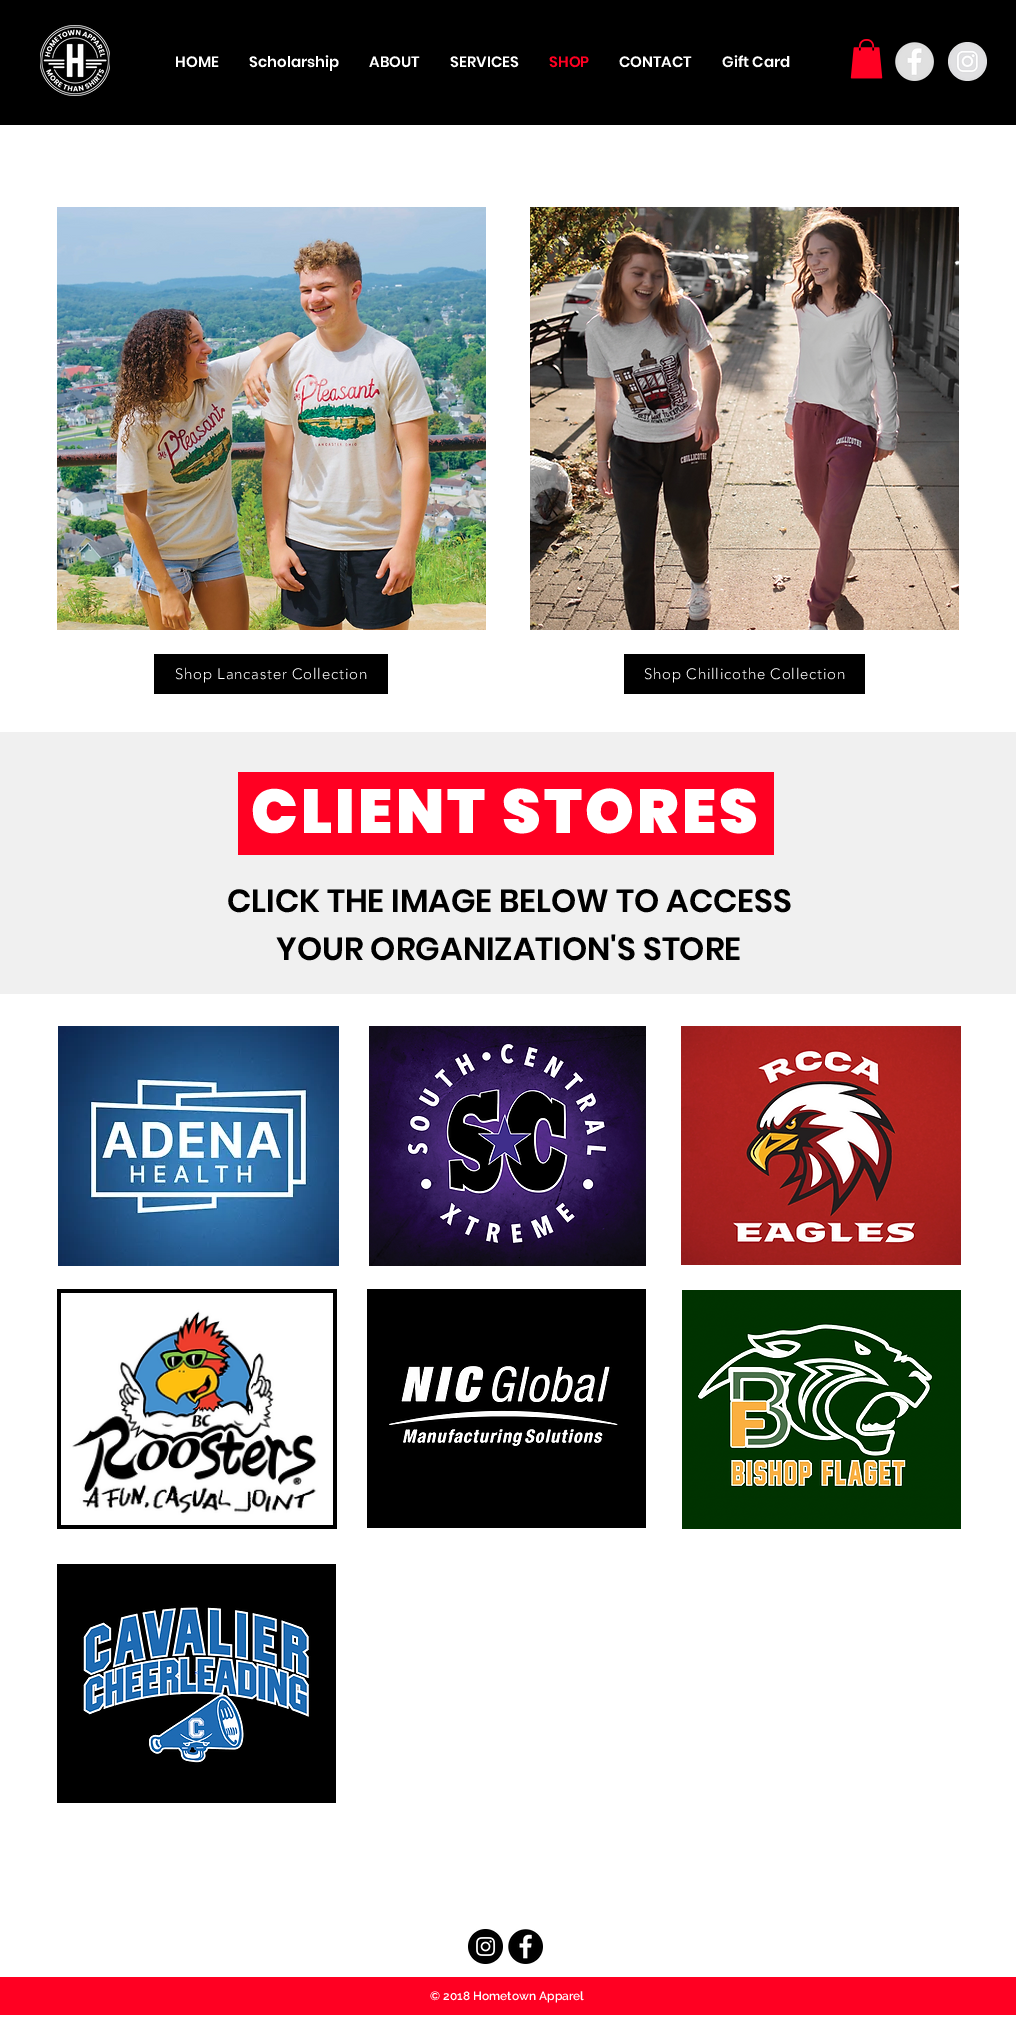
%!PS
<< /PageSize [1016 2025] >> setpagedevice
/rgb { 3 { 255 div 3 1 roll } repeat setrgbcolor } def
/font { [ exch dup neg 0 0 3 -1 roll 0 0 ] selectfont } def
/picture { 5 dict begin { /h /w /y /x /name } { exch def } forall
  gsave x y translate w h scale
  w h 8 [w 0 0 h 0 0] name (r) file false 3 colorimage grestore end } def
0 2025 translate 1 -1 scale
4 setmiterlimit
255 255 255 rgb
0 0 1016 2025 rectfill
0 0 0 rgb
0 0 1016 125 rectfill
(img/1.rgb) 40 25 70 71 picture
(img/2.rgb) 850 39 33 40 picture
(img/3.rgb) 895 42 39 39 picture
(img/4.rgb) 948 42 39 39 picture
(img/5.rgb) 57 207 429 423 picture
(img/6.rgb) 530 207 429 423 picture
[
  [154 654 234 40 0 0 0]
  [624 654 241 40 0 0 0]
  [0 732 1016 262 240 240 240]
  [238 772 536 83 255 0 34]
] { aload pop rgb rectfill } forall
(img/7.rgb) 58 1026 281 240 picture
(img/8.rgb) 369 1026 277 240 picture
(img/9.rgb) 681 1026 280 239 picture
0 0 0 rgb
57 1289 280 240 rectfill
(img/10.rgb) 61 1293 272 232 picture
(img/11.rgb) 367 1289 279 239 picture
(img/12.rgb) 682 1290 279 239 picture
(img/13.rgb) 57 1564 279 239 picture
(img/14.rgb) 468 1929 35 35 picture
(img/15.rgb) 508 1929 35 35 picture
255 0 34 rgb
0 1977 1016 38 rectfill
/Poppins-SemiBold 15 font
255 255 255 rgb
[
  [(HOME) 175 67]
  [(Scholarship) 249 67]
  [(ABOUT) 369 67]
  [(SERVICES) 450 67]
] { aload pop moveto show } forall
255 0 34 rgb
549 67 moveto (SHOP) show
255 255 255 rgb
619 67 moveto (CONTACT) show
722 67 moveto (Gift Card) show
/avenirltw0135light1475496-Light 15 font
175 679 moveto 0.75 0 (Shop Lancaster Collection) ashow
644 679 moveto 0.75 0 (Shop Chillicothe Collection) ashow
/Poppins-Black 62 font
251 833 moveto 3.1 0 (CLIENT STORES) ashow
/Poppins-SemiBold 32 font
0 0 0 rgb
227 912 moveto (CLICK THE IMAGE BELOW TO ACCESS) show
276 960 moveto (YOUR ORGANIZATION'S STORE) show
/Raleway-SemiBold 12 font
255 255 255 rgb
430 2000 moveto (© 2018 Hometown Apparel) show
showpage
